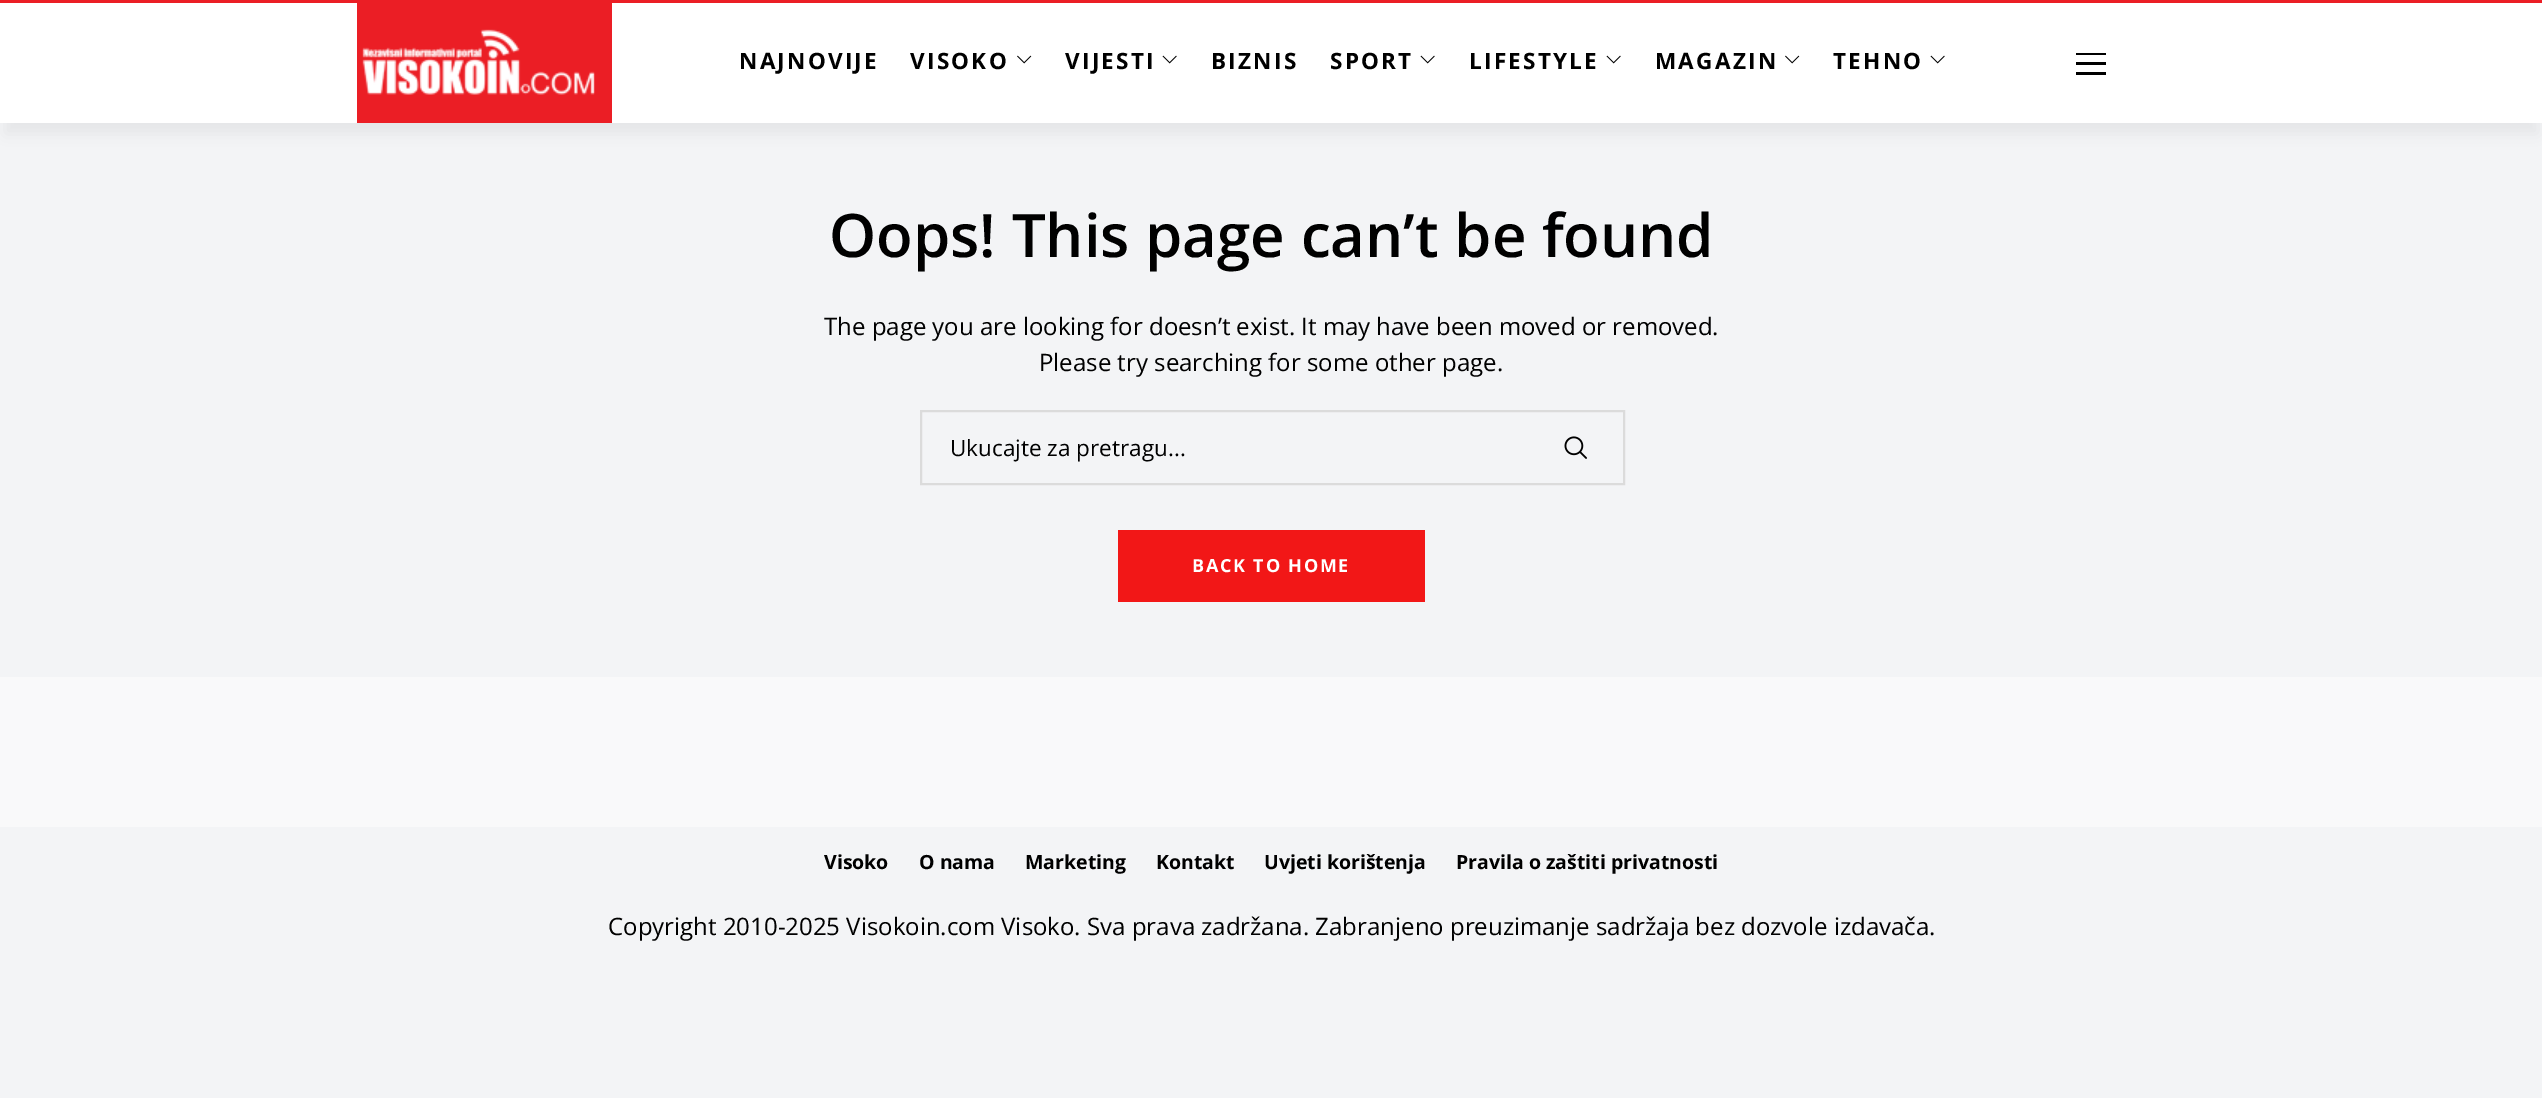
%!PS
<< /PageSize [2542 1098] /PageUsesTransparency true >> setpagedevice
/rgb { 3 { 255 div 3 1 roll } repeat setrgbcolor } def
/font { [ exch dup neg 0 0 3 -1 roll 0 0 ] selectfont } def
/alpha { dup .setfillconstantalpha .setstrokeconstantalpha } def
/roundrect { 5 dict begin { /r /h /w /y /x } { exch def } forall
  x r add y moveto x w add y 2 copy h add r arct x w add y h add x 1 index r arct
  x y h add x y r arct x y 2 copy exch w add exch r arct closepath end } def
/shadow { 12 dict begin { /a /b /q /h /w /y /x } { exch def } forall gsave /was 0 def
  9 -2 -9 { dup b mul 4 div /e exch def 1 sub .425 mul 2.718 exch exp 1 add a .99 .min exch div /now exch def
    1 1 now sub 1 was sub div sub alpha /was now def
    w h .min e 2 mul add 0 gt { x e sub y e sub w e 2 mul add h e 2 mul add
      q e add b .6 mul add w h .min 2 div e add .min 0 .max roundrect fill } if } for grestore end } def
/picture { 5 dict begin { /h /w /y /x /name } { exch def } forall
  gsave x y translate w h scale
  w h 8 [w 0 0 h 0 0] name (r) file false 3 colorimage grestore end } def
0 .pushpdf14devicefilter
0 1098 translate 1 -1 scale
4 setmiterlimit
243 244 246 rgb
0 0 2542 1098 rectfill
0 0 0 rgb
5 20 2533 114 0 7.5 0.06 shadow
[
  [0 3 2542 120 255 255 255]
  [0 0 2542 3 235 30 37]
  [357 3 255 120 235 30 37]
] { aload pop rgb rectfill } forall
(img/1.rgb) 362 29 233 66 picture
(img/2.rgb) 1017 55 15 9 picture
(img/3.rgb) 1162 55 15 9 picture
(img/3.rgb) 1420 55 15 9 picture
(img/3.rgb) 1606 55 15 9 picture
(img/2.rgb) 1785 55 15 9 picture
(img/3.rgb) 1930 55 15 9 picture
[
  [2076 53 30 2 0 0 0]
  [2076 62 30 3 0 0 0]
  [2076 72 30 3 0 0 0]
] { aload pop rgb rectfill } forall
219 219 219 rgb
2 setlinewidth
921 411 703 73 rectstroke
(img/4.rgb) 1564 436 23 23 picture
242 23 23 rgb
1118 530 307 72 rectfill
249 249 250 rgb
0 677 2542 150 rectfill
/OpenSans-Bold 22.5 font
0 0 0 rgb
739 69 moveto 2.25 0 (NAJNOVIJE) ashow
910 69 moveto 2.25 0 (VISOKO) ashow
1065 69 moveto 2.25 0 (VIJESTI) ashow
1211 69 moveto 2.25 0 (BIZNIS) ashow
1330 69 moveto 2.25 0 (SPORT) ashow
1469 69 moveto 2.25 0 (LIFESTYLE) ashow
1655 69 moveto 2.25 0 (MAGAZIN) ashow
1833 69 moveto 2.25 0 (TEHNO) ashow
/OpenSans-SemiBold 60 font
829 257 moveto (Oops! This page can’t be found) show
/OpenSans-Regular 24 font
824 335 moveto (The page you are looking for doesn’t exist. It may have been moved or removed.) show
1039 371 moveto (Please try searching for some other page.) show
/OpenSans-Regular 22.5 font
950 456 moveto (Ukucajte za pretragu...) show
/OpenSans-Bold 18 font
255 255 255 rgb
1192 572 moveto 1.75 0 (BACK TO HOME) ashow
/OpenSans-Bold 19.5 font
0 0 0 rgb
[
  [(Visoko) 824 869]
  [(O nama) 919 869]
  [(Marketing) 1025 869]
  [(Kontakt) 1156 869]
  [(Uvjeti korištenja) 1264 869]
  [(Pravila o zaštiti privatnosti) 1456 869]
] { aload pop moveto show } forall
/OpenSans-Regular 24 font
608 935 moveto (Copyright 2010-2025 Visokoin.com Visoko. Sva prava zadržana. Zabranjeno preuzimanje sadržaja bez dozvole izdavača.) show
.poppdf14devicefilter showpage
